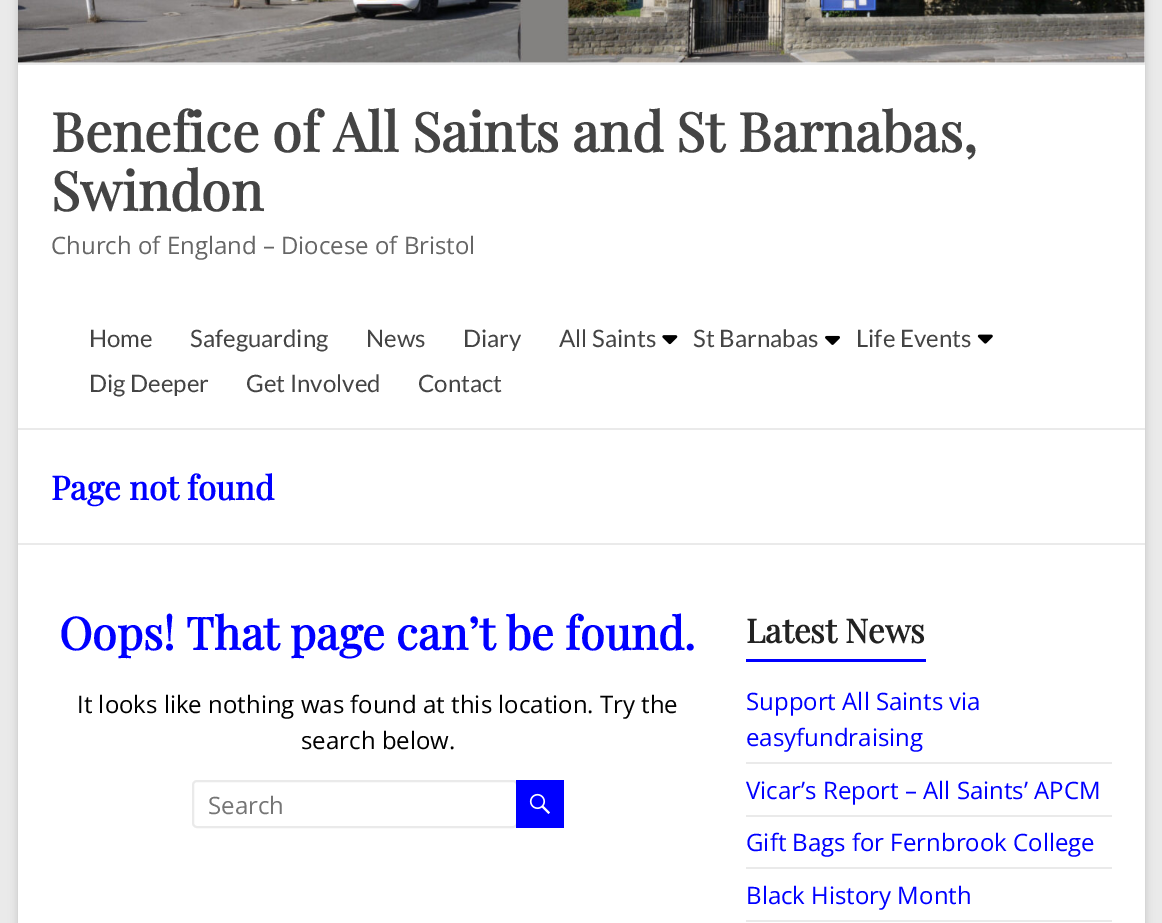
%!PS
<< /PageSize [1162 923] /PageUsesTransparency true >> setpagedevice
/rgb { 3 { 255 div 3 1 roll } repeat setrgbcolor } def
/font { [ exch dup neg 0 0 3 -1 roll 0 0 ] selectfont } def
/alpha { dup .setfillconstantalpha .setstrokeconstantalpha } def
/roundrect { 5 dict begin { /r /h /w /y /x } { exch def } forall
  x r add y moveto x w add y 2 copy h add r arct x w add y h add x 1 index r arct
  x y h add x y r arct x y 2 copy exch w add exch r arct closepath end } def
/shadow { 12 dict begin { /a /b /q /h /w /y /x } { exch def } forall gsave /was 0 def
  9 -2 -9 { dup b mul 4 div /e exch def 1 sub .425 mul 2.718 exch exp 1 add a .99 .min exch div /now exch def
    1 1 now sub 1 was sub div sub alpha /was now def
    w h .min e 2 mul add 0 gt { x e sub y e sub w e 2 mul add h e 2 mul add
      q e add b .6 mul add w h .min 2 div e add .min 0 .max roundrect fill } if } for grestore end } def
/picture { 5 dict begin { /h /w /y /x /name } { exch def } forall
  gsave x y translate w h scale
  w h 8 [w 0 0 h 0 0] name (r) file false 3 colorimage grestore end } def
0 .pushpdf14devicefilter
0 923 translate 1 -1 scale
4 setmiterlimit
234 234 234 rgb
0 0 1162 923 rectfill
100 100 100 rgb
18 -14 1127 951 0 4.5 0.3 shadow
255 255 255 rgb
18 0 1127 923 rectfill
(img/1.rgb) 18 0 1127 63 picture
234 234 234 rgb
18 63 1127 2 rectfill
18 428 1127 2 rectfill
(img/2.rgb) 662 335 16 10 picture
(img/3.rgb) 825 335 15 10 picture
(img/4.rgb) 977 334 16 10 picture
18 543 1127 2 rectfill
2 setlinewidth
193 781 324 46 4 roundrect stroke
0 0 255 rgb
516 780 48 48 rectfill
(img/5.rgb) 529 793 21 21 picture
[
  [746 659 180 3 0 0 255]
  [746 762 366 2 234 234 234]
  [746 815 366 2 234 234 234]
  [746 867 366 2 234 234 234]
  [746 920 366 2 234 234 234]
] { aload pop rgb rectfill } forall
/PlayfairDisplay-Bold 54 font
68 68 68 rgb
51 152 moveto (Benefice of All Saints and St Barnabas,) show
51 211 moveto (Swindon) show
/OpenSans-Regular 24 font
102 102 102 rgb
51 254 moveto (Church of England – Diocese of Bristol) show
/Lato-Regular 24 font
68 68 68 rgb
[
  [(Home) 89 347]
  [(Safeguarding) 190 347]
  [(News) 366 347]
  [(Diary) 463 347]
  [(All Saints) 559 347]
  [(St Barnabas) 693 347]
  [(Life Events) 856 347]
  [(Dig Deeper) 89 392]
  [(Get Involved) 246 392]
  [(Contact) 418 392]
] { aload pop moveto show } forall
/PlayfairDisplay-Bold 33 font
0 0 255 rgb
51 500 moveto (Page not found) show
/PlayfairDisplay-Bold 45 font
59 650 moveto (Oops! That page can’t be found.) show
/OpenSans-Regular 24 font
0 0 0 rgb
77 713 moveto (It looks like nothing was found at this location. Try the) show
301 749 moveto (search below.) show
117 117 117 rgb
208 814 moveto (Search) show
/PlayfairDisplay-Bold 33 font
34 34 34 rgb
746 643 moveto (Latest News) show
/OpenSans-Regular 24 font
0 0 255 rgb
[
  [(Support All Saints via) 746 710]
  [(easyfundraising) 746 746]
  [(Vicar’s Report – All Saints’ APCM) 746 799]
  [(Gift Bags for Fernbrook College) 746 851]
  [(Black History Month) 746 904]
] { aload pop moveto show } forall
.poppdf14devicefilter showpage
